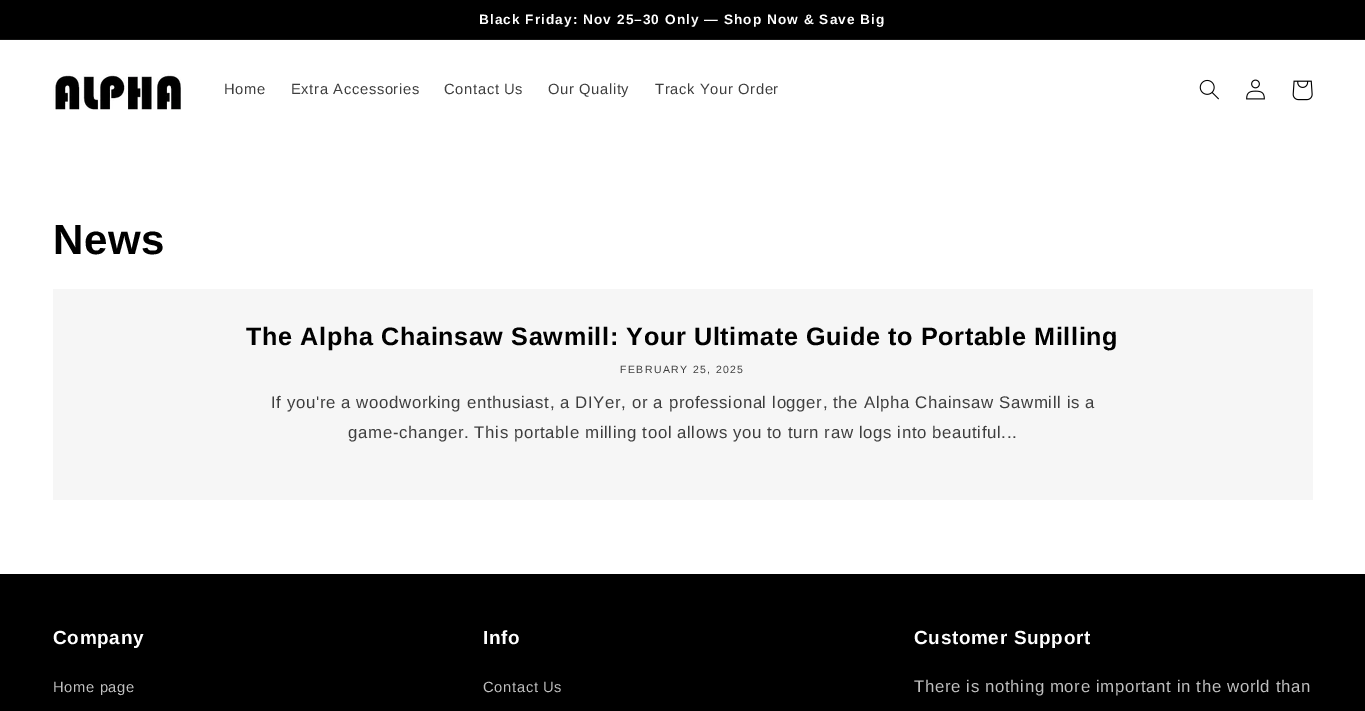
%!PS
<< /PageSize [1365 711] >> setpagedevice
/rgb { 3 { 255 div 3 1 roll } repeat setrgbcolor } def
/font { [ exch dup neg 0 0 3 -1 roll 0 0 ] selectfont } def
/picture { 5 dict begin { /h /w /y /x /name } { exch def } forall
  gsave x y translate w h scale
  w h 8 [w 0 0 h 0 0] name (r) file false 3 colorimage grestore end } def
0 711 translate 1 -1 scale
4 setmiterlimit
255 255 255 rgb
0 0 1365 711 rectfill
0 0 0 rgb
0 0 1365 39 rectfill
20 20 20 rgb
0 39 1365 1 rectfill
(img/1.rgb) 53 73 128 37 picture
(img/2.rgb) 1199 79 20 21 picture
(img/3.rgb) 1246 79 19 21 picture
(img/4.rgb) 1292 80 21 21 picture
246 246 246 rgb
53 289 1260 211 rectfill
0 0 0 rgb
0 574 1365 137 rectfill
/LiberationSans-Bold 13.65 font
255 255 255 rgb
479 24 moveto 1.05 0 (Black Friday: Nov 25–30 Only — Shop Now & Save Big) ashow
/LiberationSans-Regular 14.75 font
62 62 62 rgb
224 94 moveto 0.63 0 (Home) ashow
291 94 moveto 0.63 0 (Extra Accessories) ashow
444 94 moveto 0.63 0 (Contact Us) ashow
548 94 moveto 0.63 0 (Our Quality) ashow
655 94 moveto 0.63 0 (Track Your Order) ashow
/LiberationSans-Bold 42 font
0 0 0 rgb
53 254 moveto 0.63 0 (News) ashow
/LiberationSans-Bold 25.2 font
246 345 moveto 0.63 0 (The Alpha Chainsaw Sawmill: Your Ultimate Guide to Portable Milling) ashow
/LiberationSans-Regular 10.5 font
62 62 62 rgb
620 373 moveto 1.4 0 (FEBRUARY 25, 2025) ashow
/LiberationSans-Regular 16.8 font
271 408 moveto 0.63 0 (If you're a woodworking enthusiast, a DIYer, or a professional logger, the Alpha Chainsaw Sawmill is a) ashow
348 438 moveto 0.63 0 (game-changer. This portable milling tool allows you to turn raw logs into beautiful...) ashow
/LiberationSans-Bold 19 font
255 255 255 rgb
53 644 moveto 0.63 0 (Company) ashow
/LiberationSans-Regular 14.75 font
191 191 191 rgb
53 692 moveto 0.63 0 (Home page) ashow
/LiberationSans-Bold 19 font
255 255 255 rgb
483 644 moveto 0.63 0 (Info) ashow
/LiberationSans-Regular 14.75 font
191 191 191 rgb
483 692 moveto 0.63 0 (Contact Us) ashow
/LiberationSans-Bold 19 font
255 255 255 rgb
914 644 moveto 0.63 0 (Customer Support) ashow
/LiberationSans-Regular 16.8 font
191 191 191 rgb
914 692 moveto 0.63 0 (There is nothing more important in the world than) ashow
showpage
